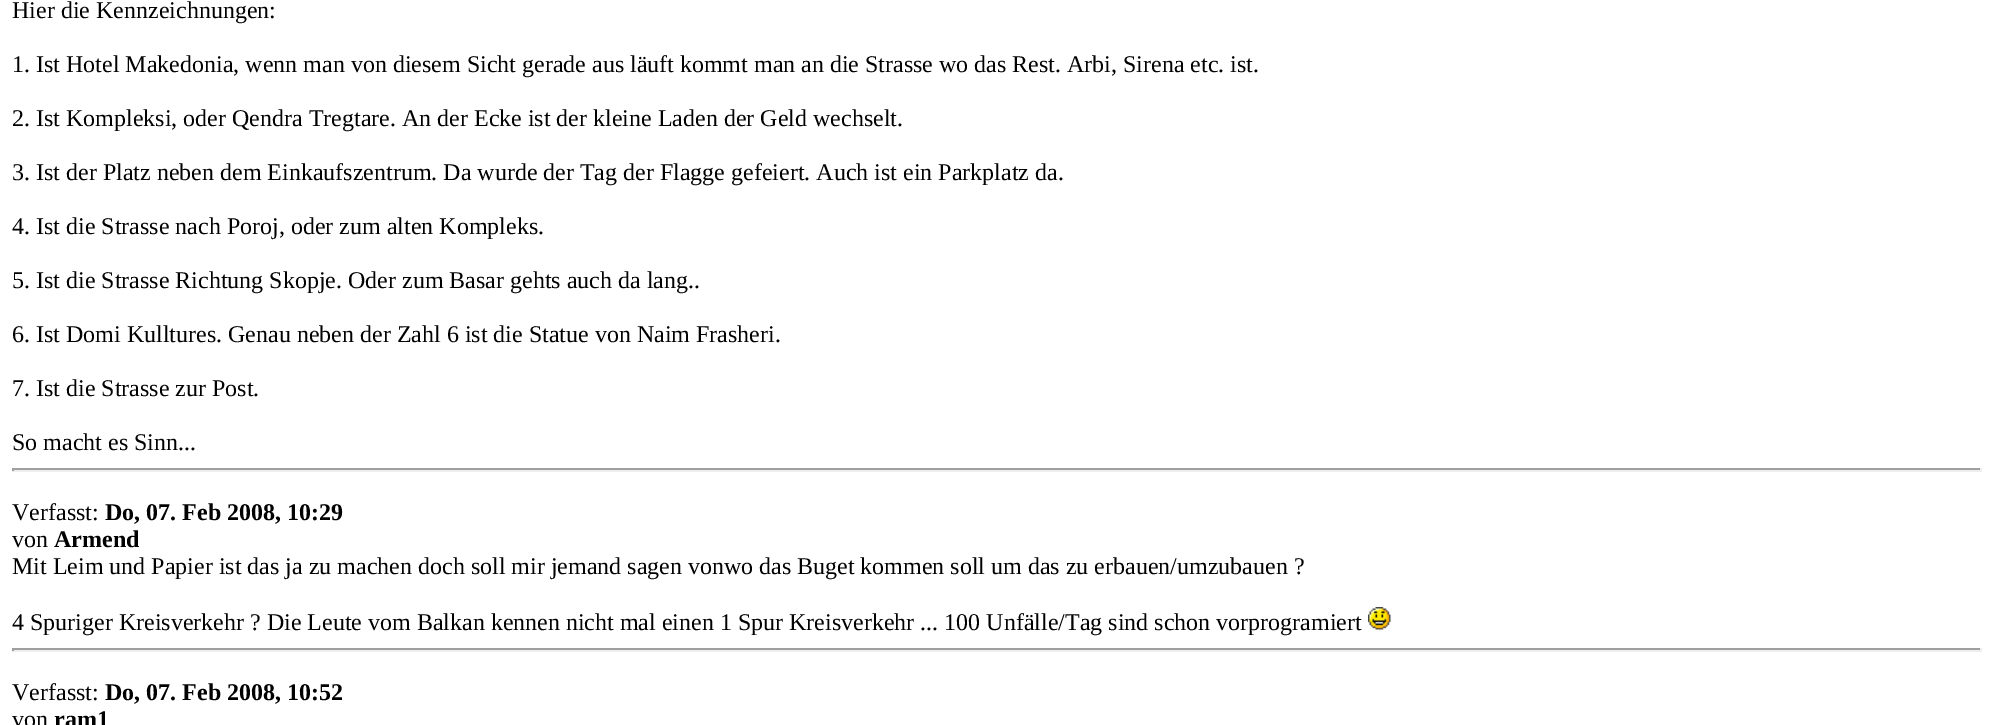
%!PS
<< /PageSize [1993 725] >> setpagedevice
/rgb { 3 { 255 div 3 1 roll } repeat setrgbcolor } def
/font { [ exch dup neg 0 0 3 -1 roll 0 0 ] selectfont } def
/picture { 5 dict begin { /h /w /y /x /name } { exch def } forall
  gsave x y translate w h scale
  w h 8 [w 0 0 h 0 0] name (r) file false 3 colorimage grestore end } def
0 725 translate 1 -1 scale
4 setmiterlimit
255 255 255 rgb
0 0 1993 725 rectfill
[
  [12 468 1970 2 159 159 159]
  [1980 468 2 3 238 238 238]
  [12 470 1970 2 238 238 238]
  [12 468 2 3 159 159 159]
] { aload pop rgb rectfill } forall
(img/1.rgb) 1368 607 23 23 picture
[
  [12 648 1970 2 159 159 159]
  [1980 648 2 3 238 238 238]
  [12 650 1970 2 238 238 238]
  [12 648 2 3 159 159 159]
] { aload pop rgb rectfill } forall
/LiberationSerif-Regular 24 font
0 0 0 rgb
[
  [(Hier die Kennzeichnungen:) 12 18]
  [(1. Ist Hotel Makedonia, wenn man von diesem Sicht gerade aus läuft kommt man an die Strasse wo das Rest. Arbi, Sirena etc. ist.) 12 72]
  [(2. Ist Kompleksi, oder Qendra Tregtare. An der Ecke ist der kleine Laden der Geld wechselt.) 12 126]
  [(3. Ist der Platz neben dem Einkaufszentrum. Da wurde der Tag der Flagge gefeiert. Auch ist ein Parkplatz da.) 12 180]
  [(4. Ist die Strasse nach Poroj, oder zum alten Kompleks.) 12 234]
  [(5. Ist die Strasse Richtung Skopje. Oder zum Basar gehts auch da lang..) 12 288]
  [(6. Ist Domi Kulltures. Genau neben der Zahl 6 ist die Statue von Naim Frasheri.) 12 342]
  [(7. Ist die Strasse zur Post.) 12 396]
  [(So macht es Sinn...) 12 450]
  [(Verfasst:) 12 520]
] { aload pop moveto show } forall
/LiberationSerif-Bold 24 font
105 520 moveto (Do, 07. Feb 2008, 10:29) show
/LiberationSerif-Regular 24 font
12 547 moveto (von) show
/LiberationSerif-Bold 24 font
54 547 moveto (Armend) show
/LiberationSerif-Regular 24 font
[
  [(Mit Leim und Papier ist das ja zu machen doch soll mir jemand sagen vonwo das Buget kommen soll um das zu erbauen/umzubauen ?) 12 574]
  [(4 Spuriger Kreisverkehr ? Die Leute vom Balkan kennen nicht mal einen 1 Spur Kreisverkehr ... 100 Unfälle/Tag sind schon vorprogramiert) 12 630]
  [(Verfasst:) 12 700]
] { aload pop moveto show } forall
/LiberationSerif-Bold 24 font
105 700 moveto (Do, 07. Feb 2008, 10:52) show
/LiberationSerif-Regular 24 font
12 727 moveto (von) show
/LiberationSerif-Bold 24 font
54 727 moveto (ram1) show
showpage
